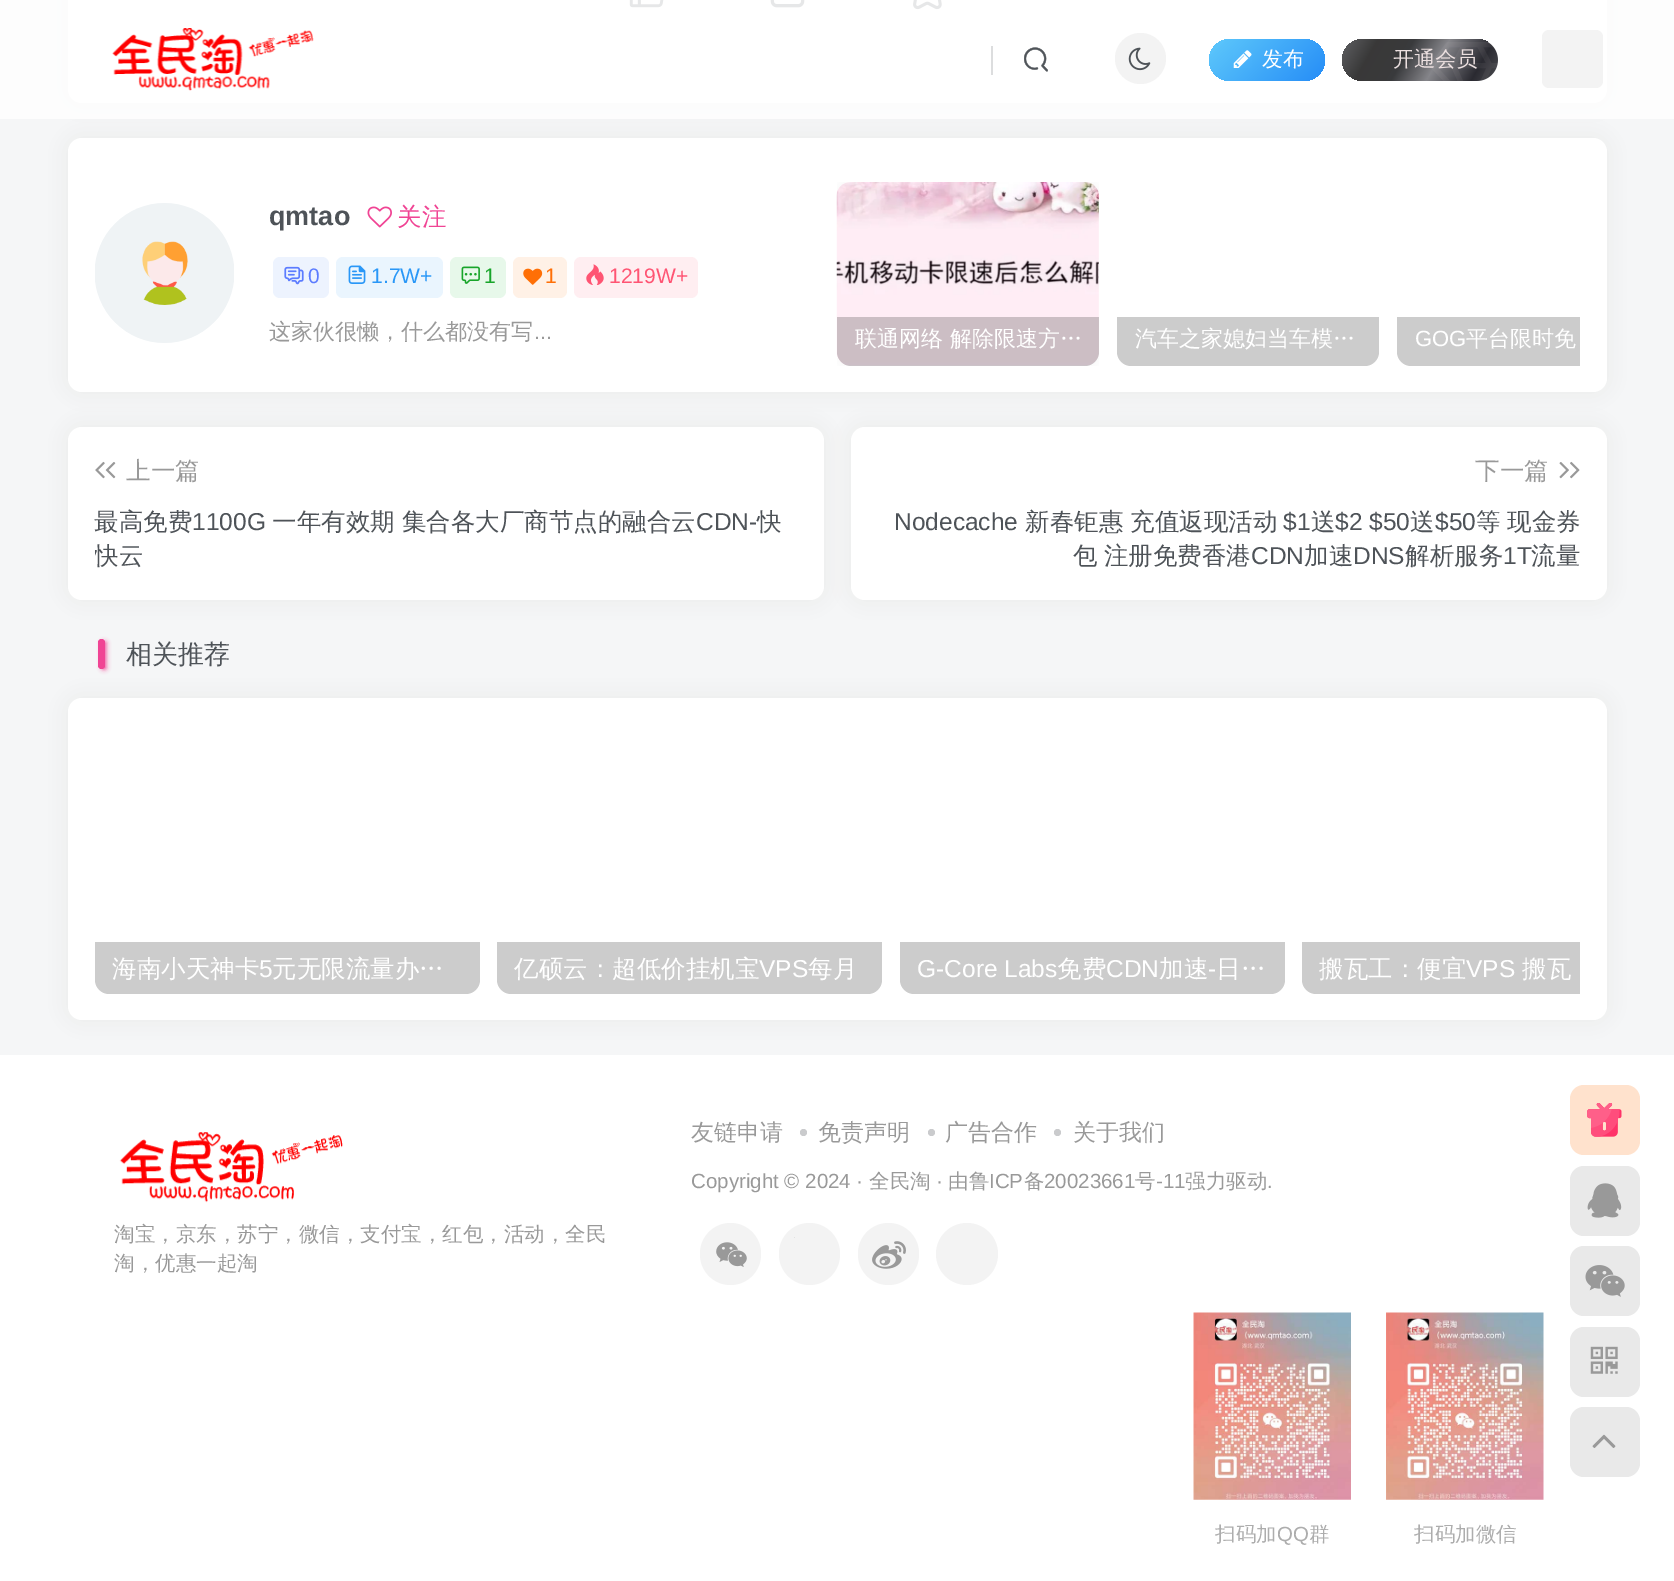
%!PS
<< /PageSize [1674 1581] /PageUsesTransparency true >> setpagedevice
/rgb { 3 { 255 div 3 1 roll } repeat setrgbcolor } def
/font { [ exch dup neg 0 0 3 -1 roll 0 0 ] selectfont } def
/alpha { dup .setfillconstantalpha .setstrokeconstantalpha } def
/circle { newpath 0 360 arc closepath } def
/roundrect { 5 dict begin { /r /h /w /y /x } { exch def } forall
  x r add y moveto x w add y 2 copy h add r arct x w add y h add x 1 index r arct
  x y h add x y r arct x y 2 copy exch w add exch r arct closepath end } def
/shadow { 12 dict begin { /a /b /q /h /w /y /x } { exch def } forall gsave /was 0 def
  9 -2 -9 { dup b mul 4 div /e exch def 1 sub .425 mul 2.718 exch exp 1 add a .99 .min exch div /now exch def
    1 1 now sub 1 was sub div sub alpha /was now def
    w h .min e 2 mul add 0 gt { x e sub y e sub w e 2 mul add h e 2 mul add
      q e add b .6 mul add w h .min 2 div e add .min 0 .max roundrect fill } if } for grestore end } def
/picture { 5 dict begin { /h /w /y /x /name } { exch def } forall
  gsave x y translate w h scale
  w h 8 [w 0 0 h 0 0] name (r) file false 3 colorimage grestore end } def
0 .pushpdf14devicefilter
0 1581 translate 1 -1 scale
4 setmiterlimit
245 246 247 rgb
0 0 1674 1581 rectfill
116 116 116 rgb
68 -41 1539 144 14 9 0.08 shadow
255 255 255 rgb
68 -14 1539 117 14 roundrect fill
(img/6.rgb) 629 0 35 8 picture
(img/7.rgb) 770 0 35 8 picture
(img/8.rgb) 913 0 29 10 picture
116 116 116 rgb
68 138 1539 254 14 9 0.08 shadow
0.8 alpha
255 255 255 rgb
0 0 1674 119 rectfill
1 alpha
(img/1.rgb) 112 28 202 63 picture
0.2 alpha
78 83 88 rgb
991 46 2 29 rectfill
1 alpha
(img/2.rgb) 1024 47 24 25 picture
243 243 243 rgb
1140.5 58.5 25.5 circle fill
(img/3.rgb) 1128 47 23 24 picture
gsave 1209 39 116 42 21 roundrect clip newpath
<< /ShadingType 2 /ColorSpace /DeviceRGB /Coords [1228 20 1306 99] /Extend [true true] /Function << /FunctionType 3 /Domain [0 1] /Functions [<< /FunctionType 2 /Domain [0 1] /C0 [0.349 0.765 0.984] /C1 [0.349 0.765 0.984] /N 1 >> << /FunctionType 2 /Domain [0 1] /C0 [0.349 0.765 0.984] /C1 [0.149 0.553 0.969] /N 1 >>] /Bounds [0.1] /Encode [0 1 0 1] >> >> shfill grestore
(img/4.rgb) 1233 50 19 18 picture
gsave 1342 39 156 42 21 roundrect clip newpath
<< /ShadingType 2 /ColorSpace /DeviceRGB /Coords [1488 98 1353 21] /Extend [true true] /Function << /FunctionType 3 /Domain [0 1] /Functions [<< /FunctionType 2 /Domain [0 1] /C0 [0.298 0.302 0.318] /C1 [0.165 0.165 0.192] /N 1 >> << /FunctionType 2 /Domain [0 1] /C0 [0.165 0.165 0.192] /C1 [0.522 0.522 0.541] /N 1 >> << /FunctionType 2 /Domain [0 1] /C0 [0.522 0.522 0.541] /C1 [0.224 0.227 0.235] /N 1 >> << /FunctionType 2 /Domain [0 1] /C0 [0.224 0.227 0.235] /C1 [0.224 0.22 0.22] /N 1 >> << /FunctionType 2 /Domain [0 1] /C0 [0.224 0.22 0.22] /C1 [0.369 0.373 0.384] /N 1 >>] /Bounds [0.15 0.4 0.6 0.8] /Encode [0 1 0 1 0 1 0 1 0 1] >> >> shfill grestore
1542 30 61 58 7 roundrect fill
255 255 255 rgb
68 138 1539 254 14 roundrect fill
(img/9.rgb) 95 203 139 140 picture
(img/10.rgb) 367 206 25 22 picture
237 243 254 rgb
273 257 56 41 7 roundrect fill
(img/11.rgb) 284 266 20 19 picture
234 245 254 rgb
336 257 107 41 7 roundrect fill
(img/12.rgb) 348 265 18 19 picture
231 248 234 rgb
450 257 56 41 7 roundrect fill
(img/13.rgb) 461 266 19 18 picture
255 241 230 rgb
513 257 54 41 7 roundrect fill
(img/14.rgb) 523 268 20 17 picture
255 238 241 rgb
574 257 124 41 7 roundrect fill
(img/15.rgb) 586 264 18 21 picture
gsave
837 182 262 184 rectclip
116 116 116 rgb
837 182 262 184 14 9 0.08 shadow
grestore
(img/16.rgb) 836 182 263 184 picture
0.2 alpha
0 0 0 rgb
837 317 moveto 1099 317 lineto 1099 352 lineto 1099 359.5 1092.5 366 1085 366 curveto 851 366 lineto 843.5 366 837 359.5 837 352 curveto closepath fill
1117 317 moveto 1379 317 lineto 1379 352 lineto 1379 359.5 1372.5 366 1365 366 curveto 1131 366 lineto 1123.5 366 1117 359.5 1117 352 curveto closepath fill
1397 317 moveto 1580 317 lineto 1580 366 lineto 1411 366 lineto 1403.5 366 1397 359.5 1397 352 curveto closepath fill
1 alpha
116 116 116 rgb
851 427 756 173 14 9 0.08 shadow
255 255 255 rgb
851 427 756 173 14 roundrect fill
116 116 116 rgb
68 427 756 173 14 9 0.08 shadow
255 255 255 rgb
68 427 756 173 14 roundrect fill
(img/17.rgb) 95 461 10 18 picture
(img/18.rgb) 105 462 11 17 picture
(img/19.rgb) 1559 462 10 17 picture
(img/20.rgb) 1570 461 10 18 picture
240 68 148 rgb
102 642 4 27 2 2.5 1 shadow
98 639 7 30 3.5 roundrect fill
116 116 116 rgb
68 698 1539 322 14 9 0.08 shadow
255 255 255 rgb
68 698 1539 322 14 roundrect fill
0.2 alpha
0 0 0 rgb
95 942 moveto 480 942 lineto 480 980 lineto 480 987.5 473.5 994 466 994 curveto 109 994 lineto 101.5 994 95 987.5 95 980 curveto closepath fill
1 alpha
204 204 204 rgb
497 942 moveto 882 942 lineto 882 980 lineto 882 987.5 875.5 994 868 994 curveto 511 994 lineto 503.5 994 497 987.5 497 980 curveto closepath fill
0.2 alpha
0 0 0 rgb
900 942 moveto 1285 942 lineto 1285 980 lineto 1285 987.5 1278.5 994 1271 994 curveto 914 994 lineto 906.5 994 900 987.5 900 980 curveto closepath fill
1 alpha
204 204 204 rgb
1302 942 moveto 1580 942 lineto 1580 994 lineto 1316 994 lineto 1308.5 994 1302 987.5 1302 980 curveto closepath fill
255 255 255 rgb
0 1055 1674 526 rectfill
202 203 205 rgb
803.5 1132.5 3.5 circle fill
931.5 1132.5 3.5 circle fill
1057.5 1132.5 3.5 circle fill
243 243 243 rgb
700 1223 61 62 30.5 roundrect fill
(img/21.rgb) 716 1242 31 25 picture
779 1223 61 62 30.5 roundrect fill
226 226 226 rgb
794 1237 1 1 rectfill
243 243 243 rgb
858 1223 61 62 30.5 roundrect fill
(img/22.rgb) 872 1241 34 28 picture
967 1254 31 circle fill
(img/23.rgb) 119 1132 224 71 picture
(img/24.rgb) 1193 1312 158 188 picture
(img/25.rgb) 1386 1312 158 188 picture
255 226 205 rgb
1570 1085 70 70 14 roundrect fill
(img/26.rgb) 1587 1103 35 34 picture
233 233 233 rgb
1570 1166 70 70 14 roundrect fill
(img/27.rgb) 1587 1183 35 35 picture
1570 1246 70 70 14 roundrect fill
(img/28.rgb) 1585 1265 40 32 picture
1570 1327 70 70 14 roundrect fill
(img/29.rgb) 1590 1346 28 28 picture
1570 1407 70 70 14 roundrect fill
(img/30.rgb) 1592 1434 24 14 picture
/WenQuanYiZenHei-Medium 21 font
255 255 255 rgb
1262 66 moveto (发布) show
236 224 224 rgb
1393 66 moveto (开通会员) show
(img/5.rgb) 1430 42 68 39 picture
/LiberationSans-Bold 27 font
78 83 88 rgb
269 225 moveto (qmtao) show
/WenQuanYiZenHei-Medium 24.5 font
240 68 148 rgb
397 225 moveto (关注) show
/LiberationSans-Regular 21 font
92 124 255 rgb
308 283 moveto (0) show
41 151 247 rgb
371 283 moveto (1.7W+) show
24 165 42 rgb
484 283 moveto (1) show
255 111 6 rgb
545 283 moveto (1) show
255 84 115 rgb
609 283 moveto (1219W+) show
/WenQuanYiZenHei-Medium 22 font
153 153 153 rgb
269 339 moveto (这家伙很懒，什么都没有写) show
/LiberationSans-Regular 22 font
534 339 moveto (...) show
/WenQuanYiZenHei-Medium 22 font
255 255 255 rgb
855 346 moveto (联通网络 解除限速方…) show
1135 346 moveto (汽车之家媳妇当车模…) show
/LiberationSans-Regular 22 font
1415 346 moveto (GOG) show
/WenQuanYiZenHei-Medium 22 font
1466 346 moveto (平台限时免) show
/WenQuanYiZenHei-Medium 24.5 font
153 153 153 rgb
126 479 moveto (上一篇) show
78 83 88 rgb
94 530 moveto (最高免费) show
/LiberationSans-Regular 24.5 font
192 530 moveto (1100G) show
/WenQuanYiZenHei-Medium 24.5 font
272 530 moveto (一年有效期 集合各大厂商节点的融合云) show
/LiberationSans-Regular 24.5 font
696 530 moveto (CDN-) show
/WenQuanYiZenHei-Medium 24.5 font
757 530 moveto (快) show
gsave
95 506 703 68 rectclip
94 564 moveto (快云) show
grestore
153 153 153 rgb
1475 479 moveto (下一篇) show
/LiberationSans-Regular 24.5 font
78 83 88 rgb
894 530 moveto (Nodecache) show
/WenQuanYiZenHei-Medium 24.5 font
1025 530 moveto (新春钜惠) show
1130 530 moveto (充值返现活动) show
/LiberationSans-Regular 24.5 font
1283 530 moveto ($1) show
/WenQuanYiZenHei-Medium 24.5 font
1311 530 moveto (送) show
/LiberationSans-Regular 24.5 font
1335 530 moveto ($2 $50) show
/WenQuanYiZenHei-Medium 24.5 font
1410 530 moveto (送) show
/LiberationSans-Regular 24.5 font
1435 530 moveto ($50) show
/WenQuanYiZenHei-Medium 24.5 font
1476 530 moveto (等) show
1507 530 moveto (现金券) show
1073 564 moveto -1 0 32 (包 注册免费香港) widthshow
/LiberationSans-Regular 24.5 font
1251 564 moveto (CDN) show
/WenQuanYiZenHei-Medium 24.5 font
1304 564 moveto (加速) show
/LiberationSans-Regular 24.5 font
1353 564 moveto (DNS) show
/WenQuanYiZenHei-Medium 24.5 font
1405 564 moveto (解析服务) show
/LiberationSans-Regular 24.5 font
1503 564 moveto (1T) show
/WenQuanYiZenHei-Medium 24.5 font
1531 564 moveto (流量) show
/WenQuanYiZenHei-Medium 26 font
126 663 moveto (相关推荐) show
/WenQuanYiZenHei-Medium 24.5 font
255 255 255 rgb
112 977 moveto (海南小天神卡) show
/LiberationSans-Regular 24.5 font
259 977 moveto (5) show
/WenQuanYiZenHei-Medium 24.5 font
272 977 moveto (元无限流量办…) show
514 977 moveto (亿硕云：超低价挂机宝) show
/LiberationSans-Regular 24.5 font
759 977 moveto (VPS) show
/WenQuanYiZenHei-Medium 24.5 font
808 977 moveto (每月) show
/LiberationSans-Regular 24.5 font
917 977 moveto (G-Core Labs) show
/WenQuanYiZenHei-Medium 24.5 font
1057 977 moveto (免费) show
/LiberationSans-Regular 24.5 font
1106 977 moveto (CDN) show
/WenQuanYiZenHei-Medium 24.5 font
1159 977 moveto (加速) show
/LiberationSans-Regular 24.5 font
1208 977 moveto (-) show
/WenQuanYiZenHei-Medium 24.5 font
1216 977 moveto (日…) show
1319 977 moveto (搬瓦工：便宜) show
/LiberationSans-Regular 24.5 font
1466 977 moveto (VPS) show
/WenQuanYiZenHei-Medium 24.5 font
1522 977 moveto (搬瓦) show
/WenQuanYiZenHei-Medium 23 font
153 153 153 rgb
[
  [(友链申请) 691 1140]
  [(免责声明) 818 1140]
  [(广告合作) 945 1140]
  [(关于我们) 1073 1140]
] { aload pop moveto show } forall
/LiberationSans-Regular 20.5 font
691 1188 moveto (Copyright © 2024 ·) show
/WenQuanYiZenHei-Medium 20.5 font
869 1188 moveto (全民淘) show
/LiberationSans-Regular 20.5 font
936 1188 moveto (·) show
/WenQuanYiZenHei-Medium 20.5 font
948 1188 moveto (由鲁) show
/LiberationSans-Regular 20.5 font
989 1188 moveto (ICP) show
/WenQuanYiZenHei-Medium 20.5 font
1024 1188 moveto (备) show
/LiberationSans-Regular 20.5 font
1044 1188 moveto (20023661) show
/WenQuanYiZenHei-Medium 20.5 font
1135 1188 moveto (号) show
/LiberationSans-Regular 20.5 font
1156 1188 moveto (-11) show
/WenQuanYiZenHei-Medium 20.5 font
1185 1188 moveto (强力驱动) show
/LiberationSans-Regular 20.5 font
1267 1188 moveto (.) show
/WenQuanYiZenHei-Medium 20.5 font
114 1241 moveto (淘宝，京东，苏宁，微信，支付宝，红包，活动，全民) show
114 1270 moveto (淘，优惠一起淘) show
173 173 173 rgb
1215 1541 moveto (扫码加) show
/LiberationSans-Regular 20.5 font
1277 1541 moveto (QQ) show
/WenQuanYiZenHei-Medium 20.5 font
1309 1541 moveto (群) show
1414 1541 moveto (扫码加微信) show
.poppdf14devicefilter showpage
